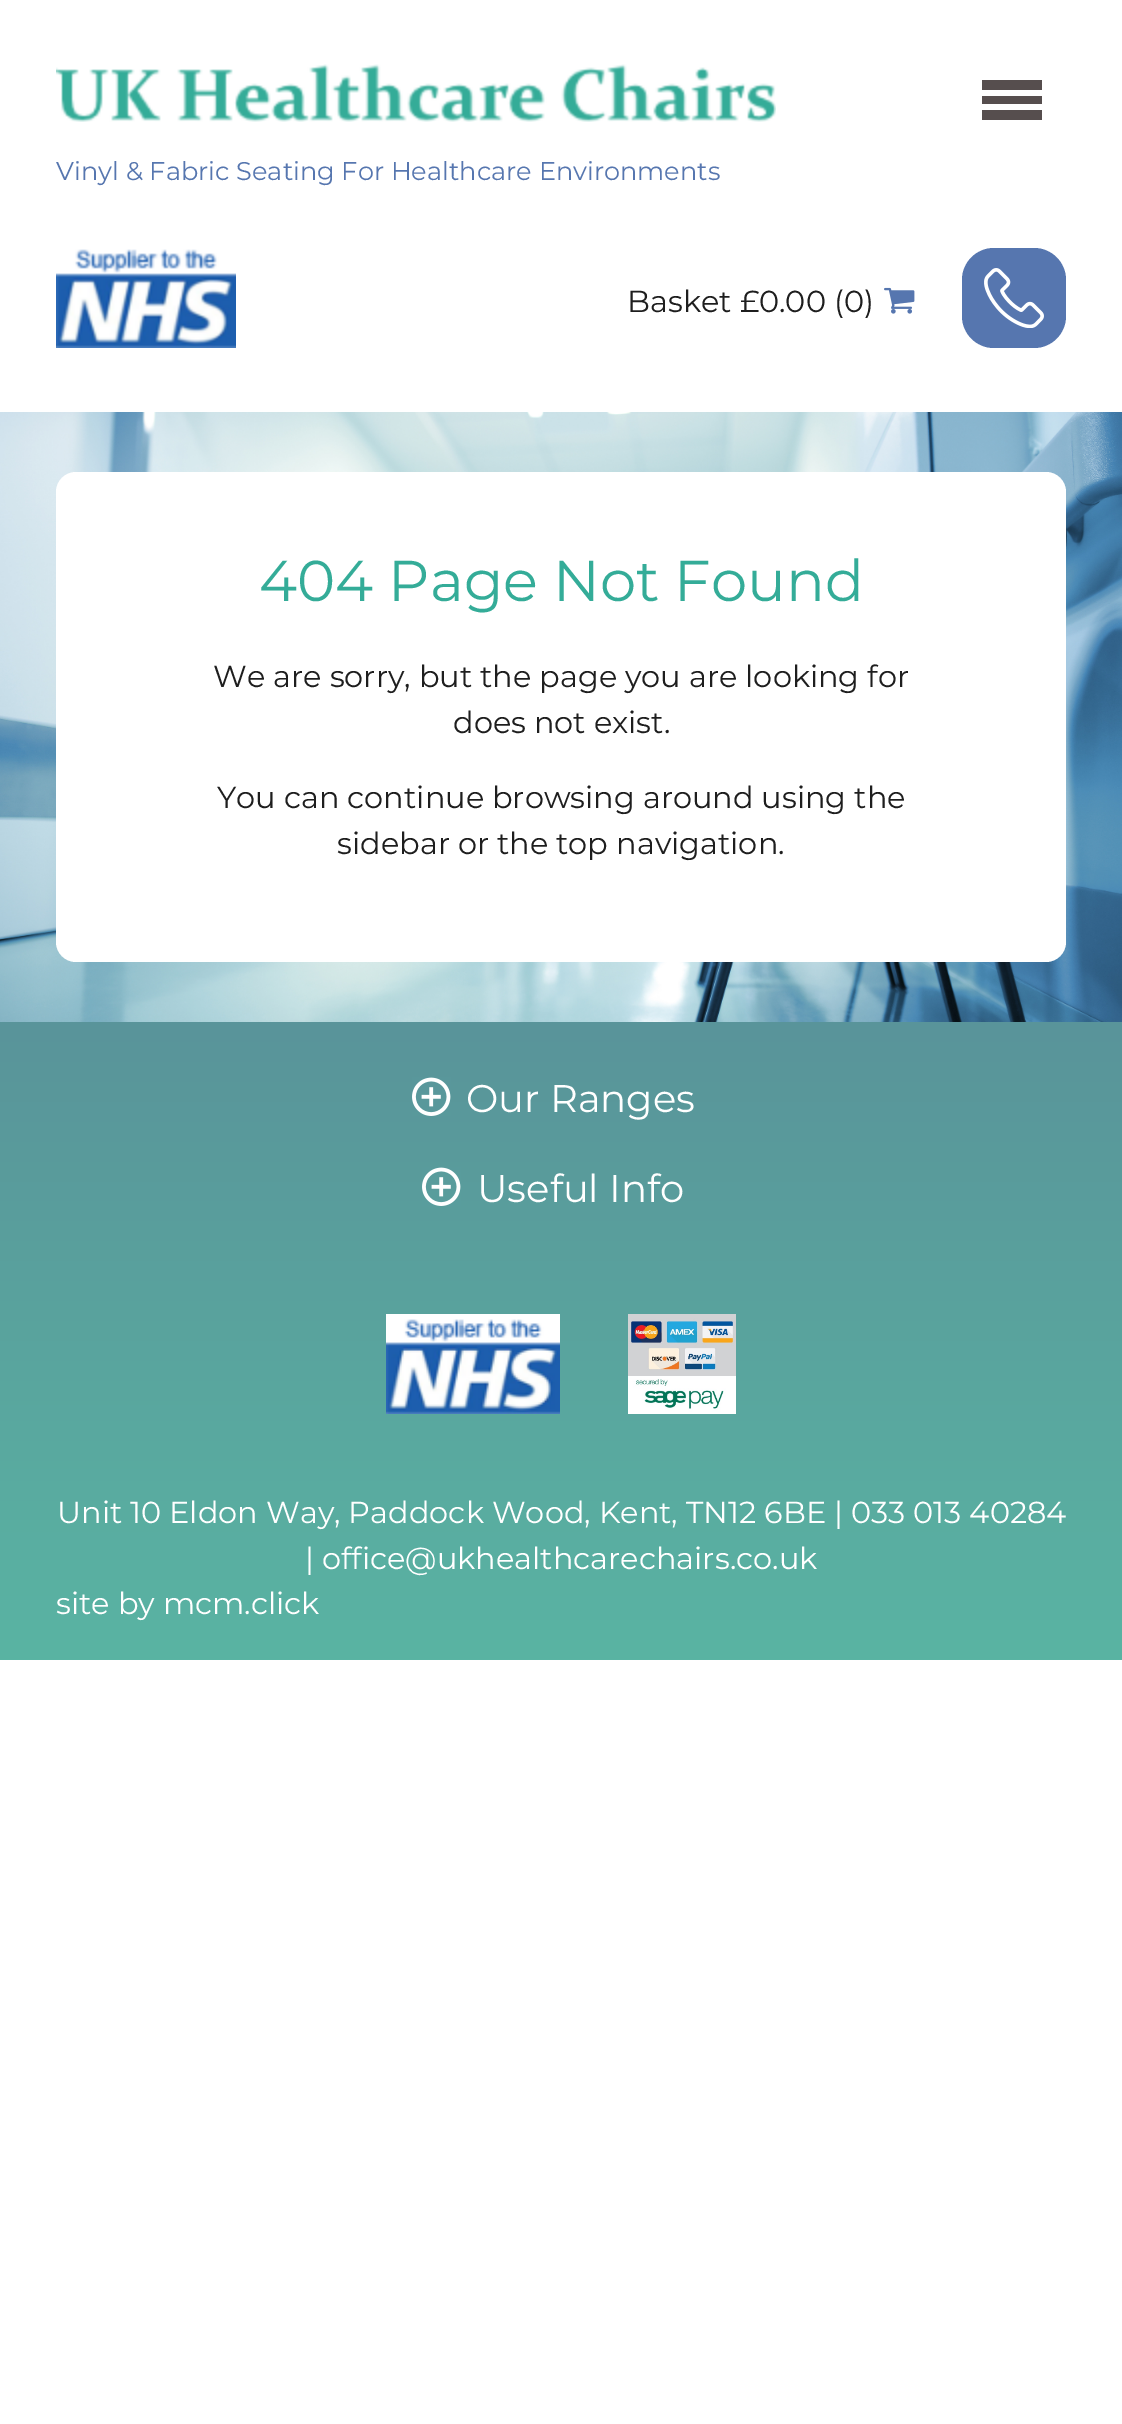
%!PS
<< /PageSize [1122 2424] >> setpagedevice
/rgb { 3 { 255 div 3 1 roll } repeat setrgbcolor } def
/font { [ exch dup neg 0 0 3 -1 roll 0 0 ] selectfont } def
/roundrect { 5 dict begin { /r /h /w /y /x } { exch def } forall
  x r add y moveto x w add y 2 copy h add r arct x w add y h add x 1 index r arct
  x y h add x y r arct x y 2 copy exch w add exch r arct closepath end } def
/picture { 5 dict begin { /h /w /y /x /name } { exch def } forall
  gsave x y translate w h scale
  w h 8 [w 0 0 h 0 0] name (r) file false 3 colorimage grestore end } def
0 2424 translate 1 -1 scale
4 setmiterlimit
255 255 255 rgb
0 0 1122 2424 rectfill
[
  [982 80 60 10 86 78 78]
  [982 96 60 8 86 78 78]
  [982 110 60 10 86 78 78]
] { aload pop rgb rectfill } forall
(img/1.rgb) 56 64 720 58 picture
(img/2.rgb) 56 249 180 99 picture
(img/3.rgb) 884 287 31 27 picture
86 118 175 rgb
962 248 104 100 32 roundrect fill
(img/4.rgb) 984 268 60 60 picture
(img/5.rgb) 0 412 1122 610 picture
255 255 255 rgb
56 472 1010 490 20 roundrect fill
gsave 0 1022 moveto 1122 1022 lineto 1122 1660 lineto 0 1660 lineto closepath clip newpath
<< /ShadingType 2 /ColorSpace /DeviceRGB /Coords [561 1022 561 1660] /Extend [true true] /Function << /FunctionType 2 /Domain [0 1] /C0 [0.349 0.58 0.604] /C1 [0.349 0.706 0.639] /N 1 >> >> shfill grestore
(img/6.rgb) 412 1077 39 39 picture
(img/7.rgb) 422 1167 39 39 picture
(img/8.rgb) 386 1314 174 100 picture
(img/9.rgb) 628 1314 108 100 picture
/Montserrat-Regular 25.6 font
86 118 175 rgb
56 180 moveto (Vinyl & Fabric Seating For Healthcare Environments) show
/Montserrat-Regular 30.4 font
30 30 30 rgb
627 312 moveto (Basket £0.00 \(0\)) show
/Montserrat-Regular 57.6 font
52 172 152 rgb
259 601 moveto (404 Page Not Found) show
/Montserrat-Regular 30.4 font
30 30 30 rgb
[
  [(We are sorry, but the page you are looking for) 213 687]
  [(does not exist.) 453 733]
  [(You can continue browsing around using the) 217 808]
  [(sidebar or the top navigation.) 337 854]
] { aload pop moveto show } forall
/Montserrat-Regular 38.5 font
255 255 255 rgb
466 1112 moveto (Our Ranges) show
477 1202 moveto (Useful Info) show
/Montserrat-Regular 30.4 font
[
  [(Unit 10 Eldon Way, Paddock Wood, Kent, TN12 6BE | 033 013 40284) 57 1523]
  [(| office@ukhealthcarechairs.co.uk) 305 1569]
  [(site by mcm.click) 56 1614]
] { aload pop moveto show } forall
showpage
